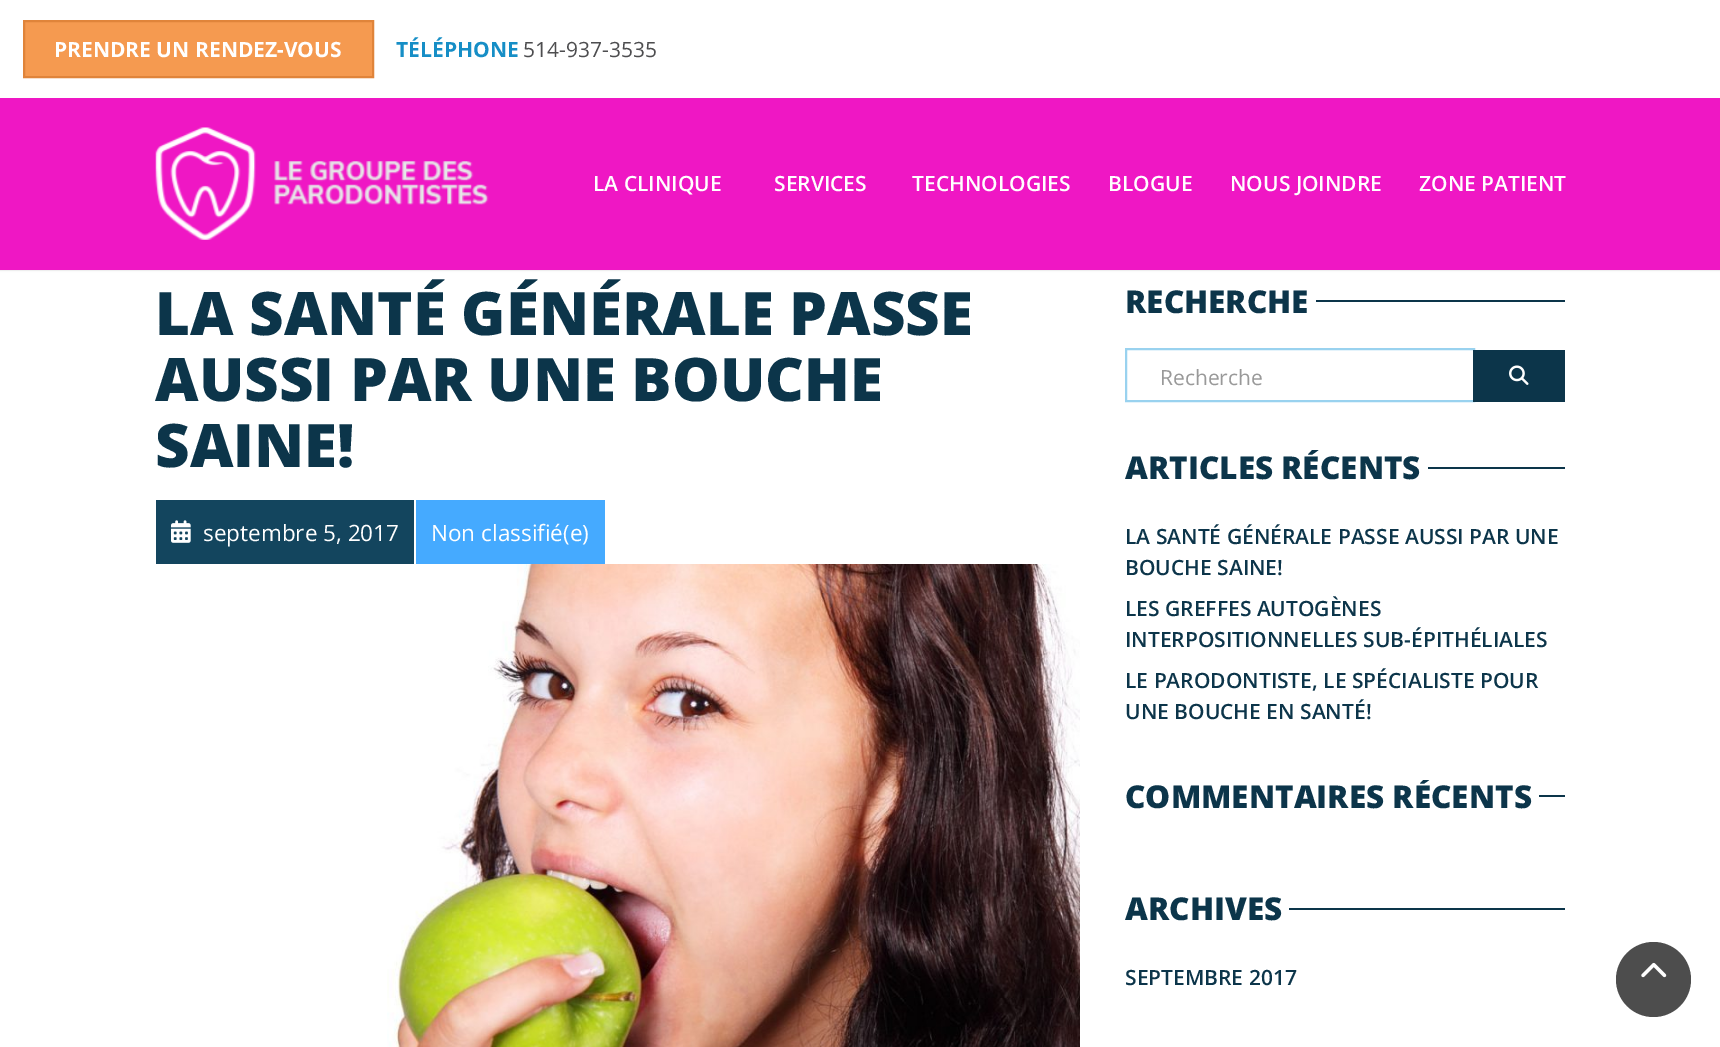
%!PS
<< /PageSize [1720 1047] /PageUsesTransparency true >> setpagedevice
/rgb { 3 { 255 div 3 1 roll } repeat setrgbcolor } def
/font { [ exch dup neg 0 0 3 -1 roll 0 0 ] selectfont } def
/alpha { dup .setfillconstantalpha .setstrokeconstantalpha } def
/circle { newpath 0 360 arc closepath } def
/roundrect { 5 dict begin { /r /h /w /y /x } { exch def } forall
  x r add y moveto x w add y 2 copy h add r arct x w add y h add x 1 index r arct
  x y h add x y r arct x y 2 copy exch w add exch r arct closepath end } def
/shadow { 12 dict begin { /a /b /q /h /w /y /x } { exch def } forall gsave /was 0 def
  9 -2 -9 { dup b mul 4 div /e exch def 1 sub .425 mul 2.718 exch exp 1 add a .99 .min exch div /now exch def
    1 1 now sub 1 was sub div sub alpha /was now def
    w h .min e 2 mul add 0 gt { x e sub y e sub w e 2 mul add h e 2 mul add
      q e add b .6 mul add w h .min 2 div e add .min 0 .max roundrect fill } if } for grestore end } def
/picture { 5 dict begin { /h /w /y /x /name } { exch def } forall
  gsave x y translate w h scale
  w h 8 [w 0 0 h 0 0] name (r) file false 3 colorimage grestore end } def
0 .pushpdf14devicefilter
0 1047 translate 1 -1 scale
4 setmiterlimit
255 255 255 rgb
0 0 1720 1047 rectfill
0 0 0 rgb
0 0 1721 270 0 1 0.2 shadow
239 23 196 rgb
0 98 1720 172 rectfill
255 255 255 rgb
0 0 1720 98 rectfill
245 154 80 rgb
24 21 moveto 373 21 lineto 373 77 lineto 24 77 lineto closepath gsave fill grestore
224 132 58 rgb
2 setlinewidth
stroke
(img/1.rgb) 155 127 334 113 picture
19 69 94 rgb
156 500 258 64 rectfill
(img/2.rgb) 171 520 20 23 picture
69 170 255 rgb
416 500 189 64 rectfill
(img/3.rgb) 387 564 693 483 picture
12 53 74 rgb
1316 300 249 2 rectfill
153 210 239 rgb
1126 349 348 52 rectstroke
12 53 74 rgb
1473 350 92 52 rectfill
(img/4.rgb) 1509 365 20 20 picture
[
  [1428 467 137 2 12 53 74]
  [1539 795 26 2 12 53 74]
  [1289 908 276 2 12 53 74]
] { aload pop rgb rectfill } forall
77 77 77 rgb
1653.5 979.5 37.5 circle fill
(img/5.rgb) 1641 962 26 16 picture
/OpenSans-Bold 21 font
255 255 255 rgb
54 57 moveto (PRENDRE UN RENDEZ-VOUS) show
22 142 198 rgb
396 57 moveto (TÉLÉPHONE) show
/OpenSans-Regular 21 font
77 77 79 rgb
523 57 moveto (514-937-3535) show
/OpenSans-SemiBold 21 font
255 255 255 rgb
[
  [(LA CLINIQUE) 593 191]
  [(SERVICES) 774 191]
  [(TECHNOLOGIES) 912 191]
  [(BLOGUE) 1108 191]
  [(NOUS JOINDRE) 1230 191]
  [(ZONE PATIENT) 1419 191]
] { aload pop moveto show } forall
/OpenSans-ExtraBold 60 font
12 53 74 rgb
[
  [(LA SANTÉ GÉNÉRALE PASSE) 155 335]
  [(AUSSI PAR UNE BOUCHE) 155 401]
  [(SAINE!) 155 467]
] { aload pop moveto show } forall
/OpenSans-Regular 22.5 font
255 255 255 rgb
203 541 moveto (septembre 5, 2017) show
431 541 moveto (Non classifié\(e\)) show
/OpenSans-ExtraBold 31.5 font
12 53 74 rgb
1125 313 moveto (RECHERCHE) show
/OpenSans-Regular 21 font
153 153 153 rgb
1160 385 moveto (Recherche) show
gsave
1125 450 440 36 rectclip
/OpenSans-ExtraBold 31.5 font
12 53 74 rgb
1125 479 moveto (ARTICLES RÉCENTS) show
grestore
/OpenSans-SemiBold 21 font
12 53 74 rgb
[
  [(LA SANTÉ GÉNÉRALE PASSE AUSSI PAR UNE) 1125 544]
  [(BOUCHE SAINE!) 1125 575]
  [(LES GREFFES AUTOGÈNES) 1125 616]
  [(INTERPOSITIONNELLES SUB-ÉPITHÉLIALES) 1125 647]
  [(LE PARODONTISTE, LE SPÉCIALISTE POUR) 1125 688]
  [(UNE BOUCHE EN SANTÉ!) 1125 719]
] { aload pop moveto show } forall
gsave
1125 780 440 35 rectclip
/OpenSans-ExtraBold 31.5 font
1125 808 moveto (COMMENTAIRES RÉCENTS) show
grestore
/OpenSans-ExtraBold 31.5 font
1125 920 moveto (ARCHIVES) show
/OpenSans-SemiBold 21 font
1125 985 moveto (SEPTEMBRE 2017) show
.poppdf14devicefilter showpage
